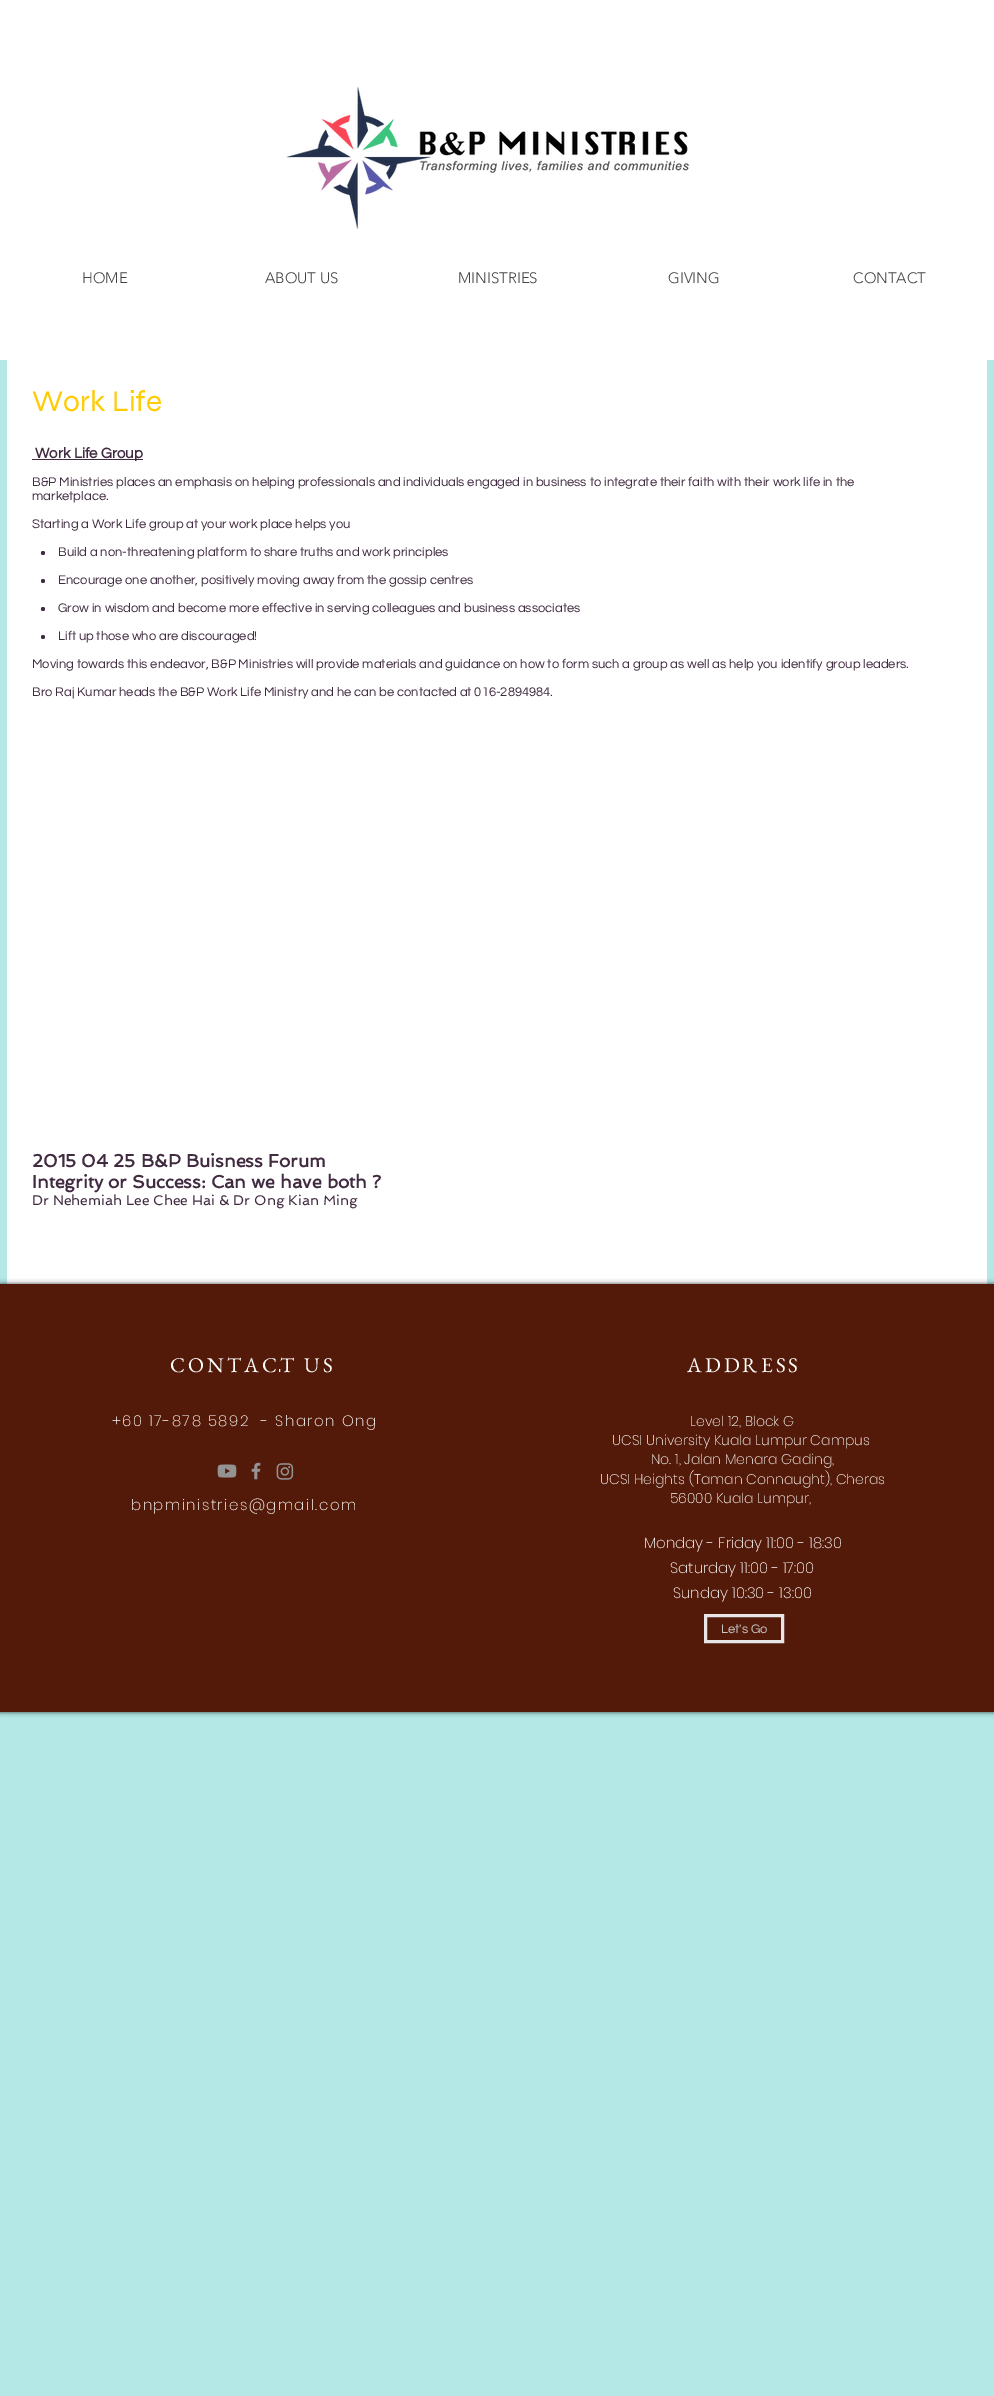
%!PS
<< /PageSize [994 2396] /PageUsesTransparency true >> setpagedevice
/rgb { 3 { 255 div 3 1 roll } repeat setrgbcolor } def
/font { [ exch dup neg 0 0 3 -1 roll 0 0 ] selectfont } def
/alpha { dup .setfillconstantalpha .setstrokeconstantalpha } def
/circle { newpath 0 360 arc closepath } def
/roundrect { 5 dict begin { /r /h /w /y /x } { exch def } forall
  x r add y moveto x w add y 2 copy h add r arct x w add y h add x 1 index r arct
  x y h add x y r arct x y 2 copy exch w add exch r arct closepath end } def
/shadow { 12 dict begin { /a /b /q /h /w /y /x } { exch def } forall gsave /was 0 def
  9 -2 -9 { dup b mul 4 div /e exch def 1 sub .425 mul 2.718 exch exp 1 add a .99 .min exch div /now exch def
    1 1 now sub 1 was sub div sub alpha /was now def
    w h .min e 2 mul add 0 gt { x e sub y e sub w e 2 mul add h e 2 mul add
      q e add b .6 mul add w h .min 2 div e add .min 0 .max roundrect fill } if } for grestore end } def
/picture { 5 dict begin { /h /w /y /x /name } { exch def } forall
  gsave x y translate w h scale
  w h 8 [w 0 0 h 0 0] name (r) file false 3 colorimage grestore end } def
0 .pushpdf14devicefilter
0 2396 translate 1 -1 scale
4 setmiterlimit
180 232 231 rgb
0 0 994 2396 rectfill
255 255 255 rgb
0 0 994 360 rectfill
(img/1.rgb) 286 86 403 144 picture
7 360 980 924 rectfill
64 43 64 rgb
32 459 111 1 rectfill
43 553 2 circle fill
43 581 2 circle fill
43 609 2 circle fill
43 637 2 circle fill
0 0 0 rgb
0 1284 994 428 0 2.5 0.7 shadow
84 26 9 rgb
0 1284 994 428 rectfill
(img/2.rgb) 217 1464 20 14 picture
(img/3.rgb) 251 1462 10 18 picture
(img/4.rgb) 276 1463 18 17 picture
232 230 230 rgb
3 setlinewidth
705.5 1615.5 77 26 rectstroke
255 255 254 rgb
1 setlinewidth
279.5 1369 moveto 279.5 1372 lineto stroke
710.5 1369 moveto 710.5 1372 lineto stroke
/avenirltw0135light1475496-Light 15 font
68 68 68 rgb
[
  [(HOME) 82 283]
  [(ABOUT US) 265 283]
  [(MINISTRIES) 458 283]
  [(GIVING) 668 283]
  [(CONTACT) 853 283]
] { aload pop moveto show } forall
/Syne-Regular 30 font
255 203 5 rgb
32 411 moveto (Work Life) show
/Questrial-Bold 15 font
64 43 64 rgb
35 458 moveto (Work Life Group) show
/Questrial-Regular 13 font
[
  [(B&P Ministries places an emphasis on helping professionals and individuals engaged in business to integrate their faith with their work life in the) 32 486]
  [(marketplace.) 32 500]
  [(Starting a Work Life group at your work place helps you) 32 528]
  [(Build a non-threatening platform to share truths and work principles) 58 556]
  [(Encourage one another, positively moving away from the gossip centres) 58 584]
  [(Grow in wisdom and become more effective in serving colleagues and business associates) 58 612]
  [(Lift up those who are discouraged!) 58 640]
  [(Moving towards this endeavor, B&P Ministries will provide materials and guidance on how to form such a group as well as help you identify group leaders.) 32 668]
  [(Bro Raj Kumar heads the B&P Work Life Ministry and he can be contacted at 016-2894984.) 32 696]
] { aload pop moveto show } forall
/Spinnaker-Bold 18 font
32 1167 moveto (2015 04 25 B&P Buisness Forum) show
32 1188 moveto (Integrity or Success: Can we have both ?) show
/Spinnaker-Regular 14 font
32 1205 moveto (Dr Nehemiah Lee Chee Hai & Dr Ong Kian Ming) show
/EBGaramond-Regular 21 font
255 255 254 rgb
170 1372 moveto 3.1 0 (CONTACT US) ashow
/Poppins-ExtraLight 15 font
112 1426 moveto 1.5 0 (+60 17-878 5892  - Sharon Ong) ashow
131 1510 moveto 1.5 0 (bnpministries@gmail.com) ashow
/EBGaramond-Regular 21 font
687 1372 moveto 3.1 0 (ADDRESS) ashow
/Poppins-ExtraLight 14 font
[
  [(Level 12, Block G) 690 1426]
  [(UCSI University Kuala Lumpur Campus) 612 1445]
  [(No. 1, Jalan Menara Gading,) 651 1464]
  [(UCSI Heights \(Taman Connaught\), Cheras) 600 1484]
  [(56000 Kuala Lumpur,) 670 1503]
] { aload pop moveto show } forall
/Poppins-ExtraLight 15 font
[
  [(Monday - Friday 11:00 - 18:30) 644 1548]
  [(Saturday 11:00 - 17:00) 670 1573]
  [(Sunday 10:30 - 13:00) 673 1598]
] { aload pop moveto show } forall
/Questrial-Regular 13 font
199 199 199 rgb
721 1633 moveto (Let's Go) show
.poppdf14devicefilter showpage
